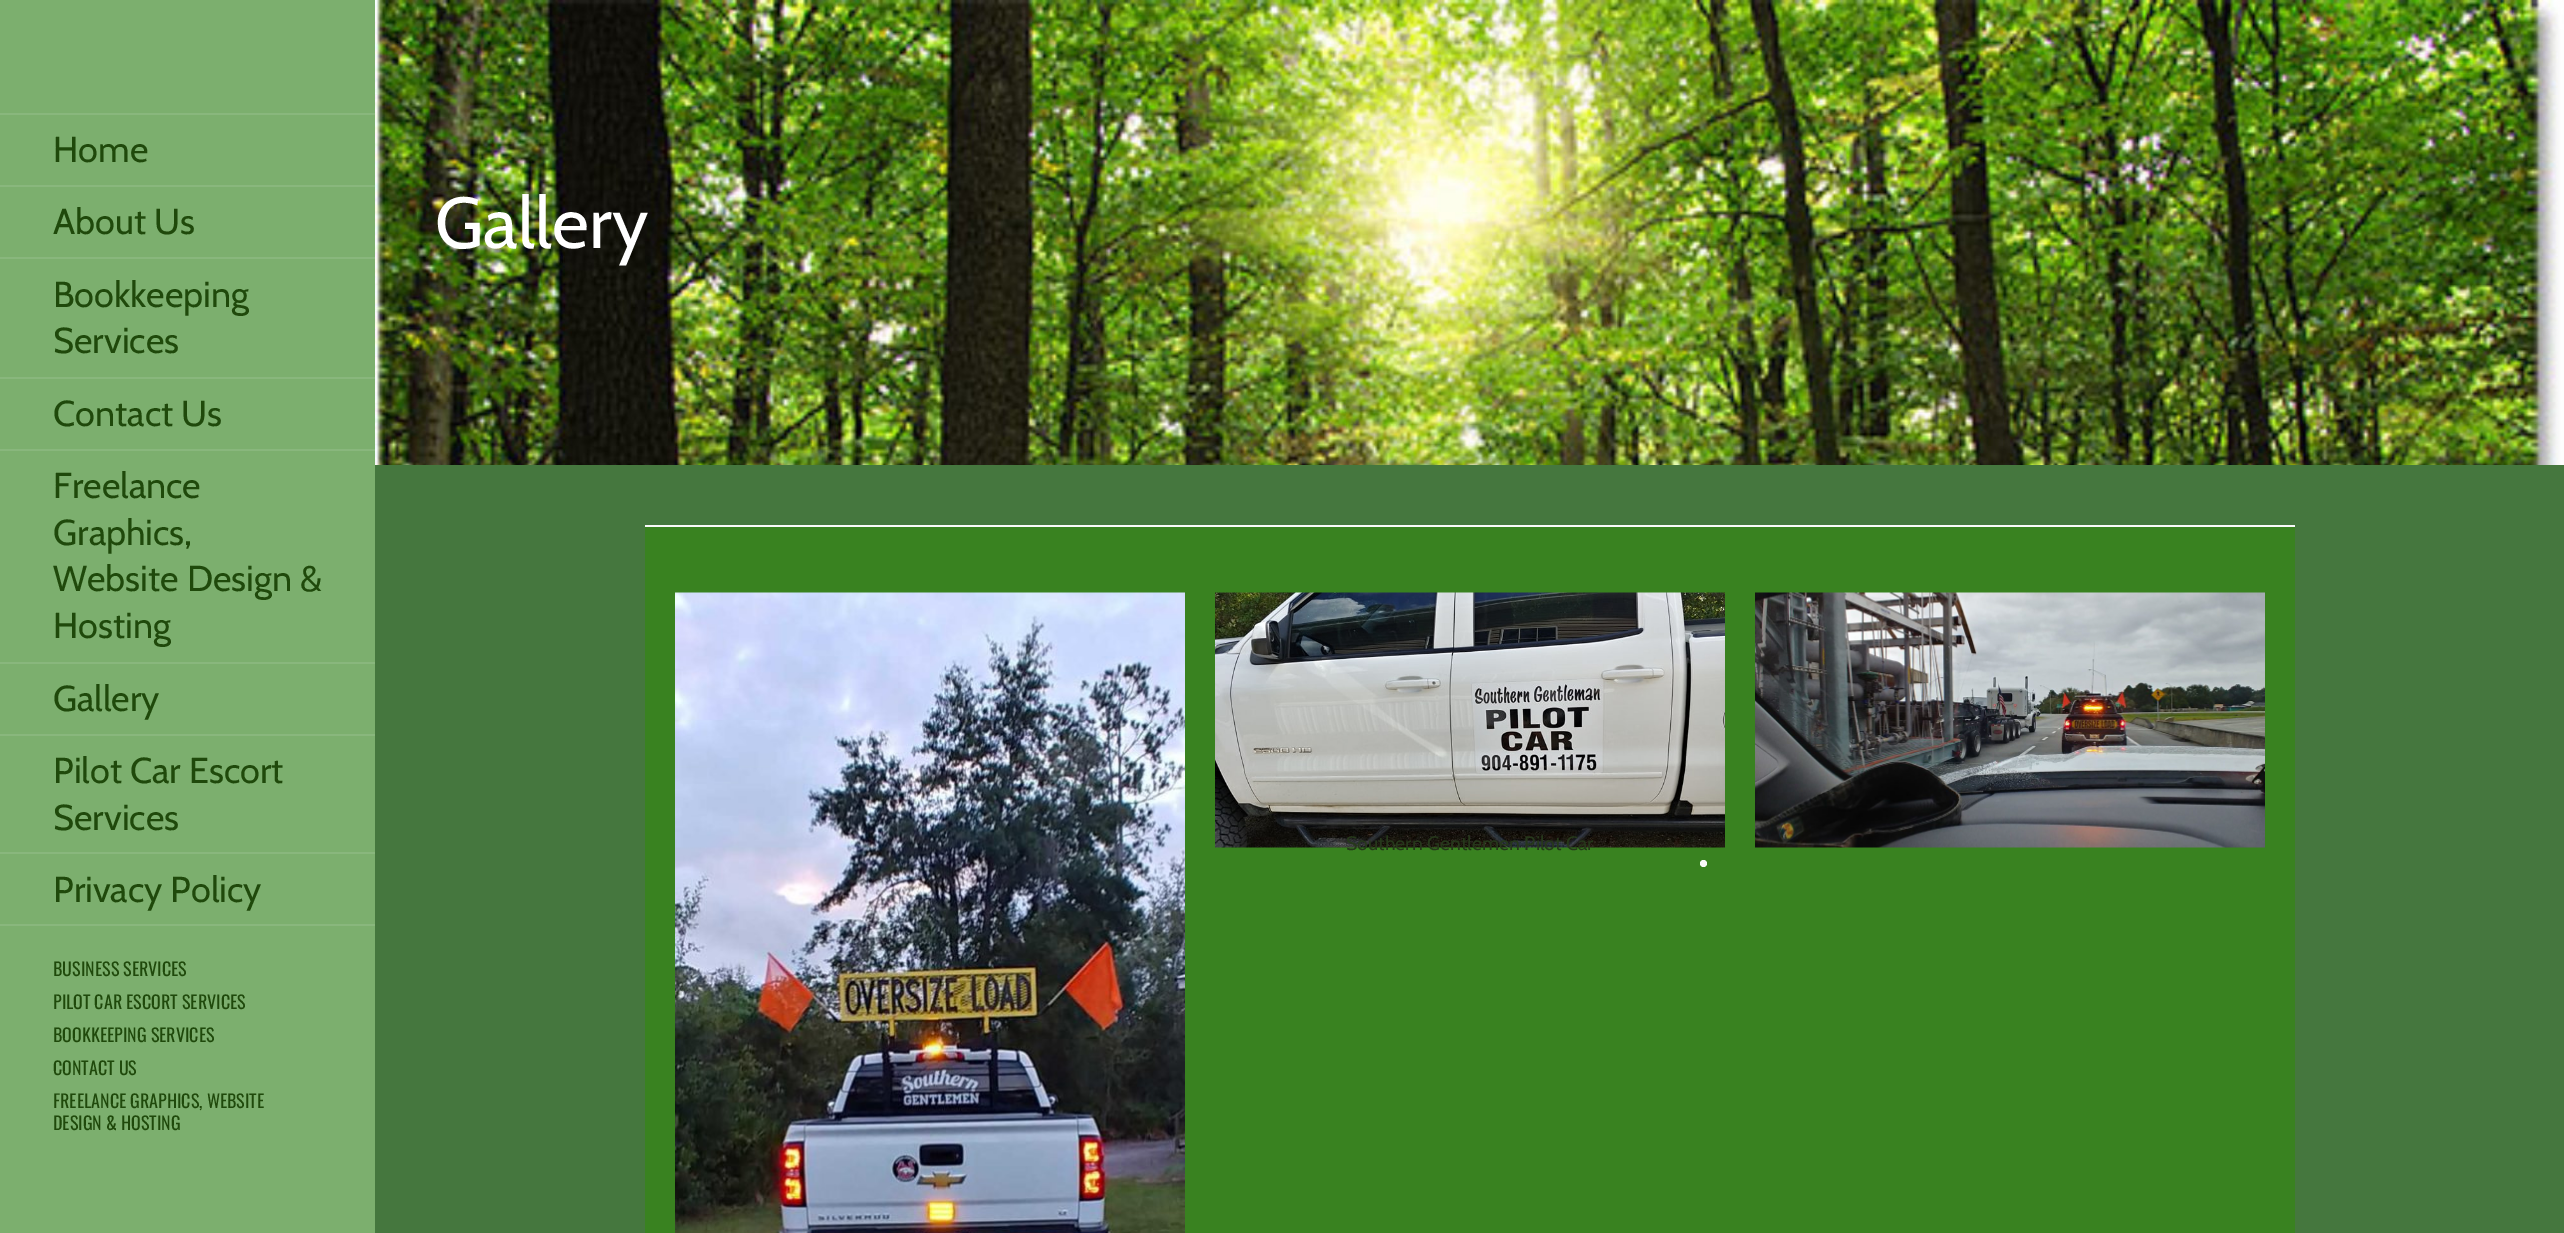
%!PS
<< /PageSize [2564 1233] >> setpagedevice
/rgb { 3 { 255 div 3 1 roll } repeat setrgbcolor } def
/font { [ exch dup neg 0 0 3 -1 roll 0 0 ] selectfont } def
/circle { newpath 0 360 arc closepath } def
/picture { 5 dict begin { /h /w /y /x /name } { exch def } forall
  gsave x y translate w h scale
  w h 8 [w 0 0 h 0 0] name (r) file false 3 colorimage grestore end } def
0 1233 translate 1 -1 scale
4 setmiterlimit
69 119 62 rgb
0 0 2564 1233 rectfill
(img/1.rgb) 375 0 2189 465 picture
[
  [0 0 375 1233 124 175 110]
  [0 113 375 2 137 183 125]
  [0 185 375 2 137 183 125]
  [0 257 375 2 137 183 125]
  [0 377 375 2 137 183 125]
  [0 449 375 2 137 183 125]
  [0 662 375 2 137 183 125]
  [0 734 375 2 137 183 125]
  [0 852 375 2 137 183 125]
  [0 924 375 2 137 183 125]
  [645 527 1650 706 57 130 32]
  [645 525 1650 2 249 249 249]
] { aload pop rgb rectfill } forall
(img/2.rgb) 675 592 510 641 picture
(img/3.rgb) 1215 592 510 256 picture
(img/4.rgb) 1755 592 510 256 picture
1703.5 863.5 3.5 circle fill
/Cabin-Regular 36 font
31 73 11 rgb
[
  [(Home) 53 162]
  [(About Us) 53 234]
  [(Bookkeeping) 53 307]
  [(Services) 53 353]
  [(Contact Us) 53 426]
  [(Freelance) 53 498]
  [(Graphics,) 53 545]
  [(Website Design &) 53 591]
  [(Hosting) 53 638]
  [(Gallery) 53 711]
  [(Pilot Car Escort) 53 783]
  [(Services) 53 830]
  [(Privacy Policy) 53 902]
] { aload pop moveto show } forall
/Oswald-Regular 18 font
[
  [(BUSINESS SERVICES) 53 976]
  [(PILOT CAR ESCORT SERVICES) 53 1009]
  [(BOOKKEEPING SERVICES) 53 1042]
  [(CONTACT US) 53 1075]
  [(FREELANCE GRAPHICS, WEBSITE) 53 1108]
  [(DESIGN & HOSTING) 53 1130]
] { aload pop moveto show } forall
/Cabin-Regular 72 font
255 255 255 rgb
435 248 moveto (Gallery) show
/Cabin-Regular 19.5 font
38 56 27 rgb
1346 850 moveto (Southern Gentlemen Pilot Car) show
showpage
